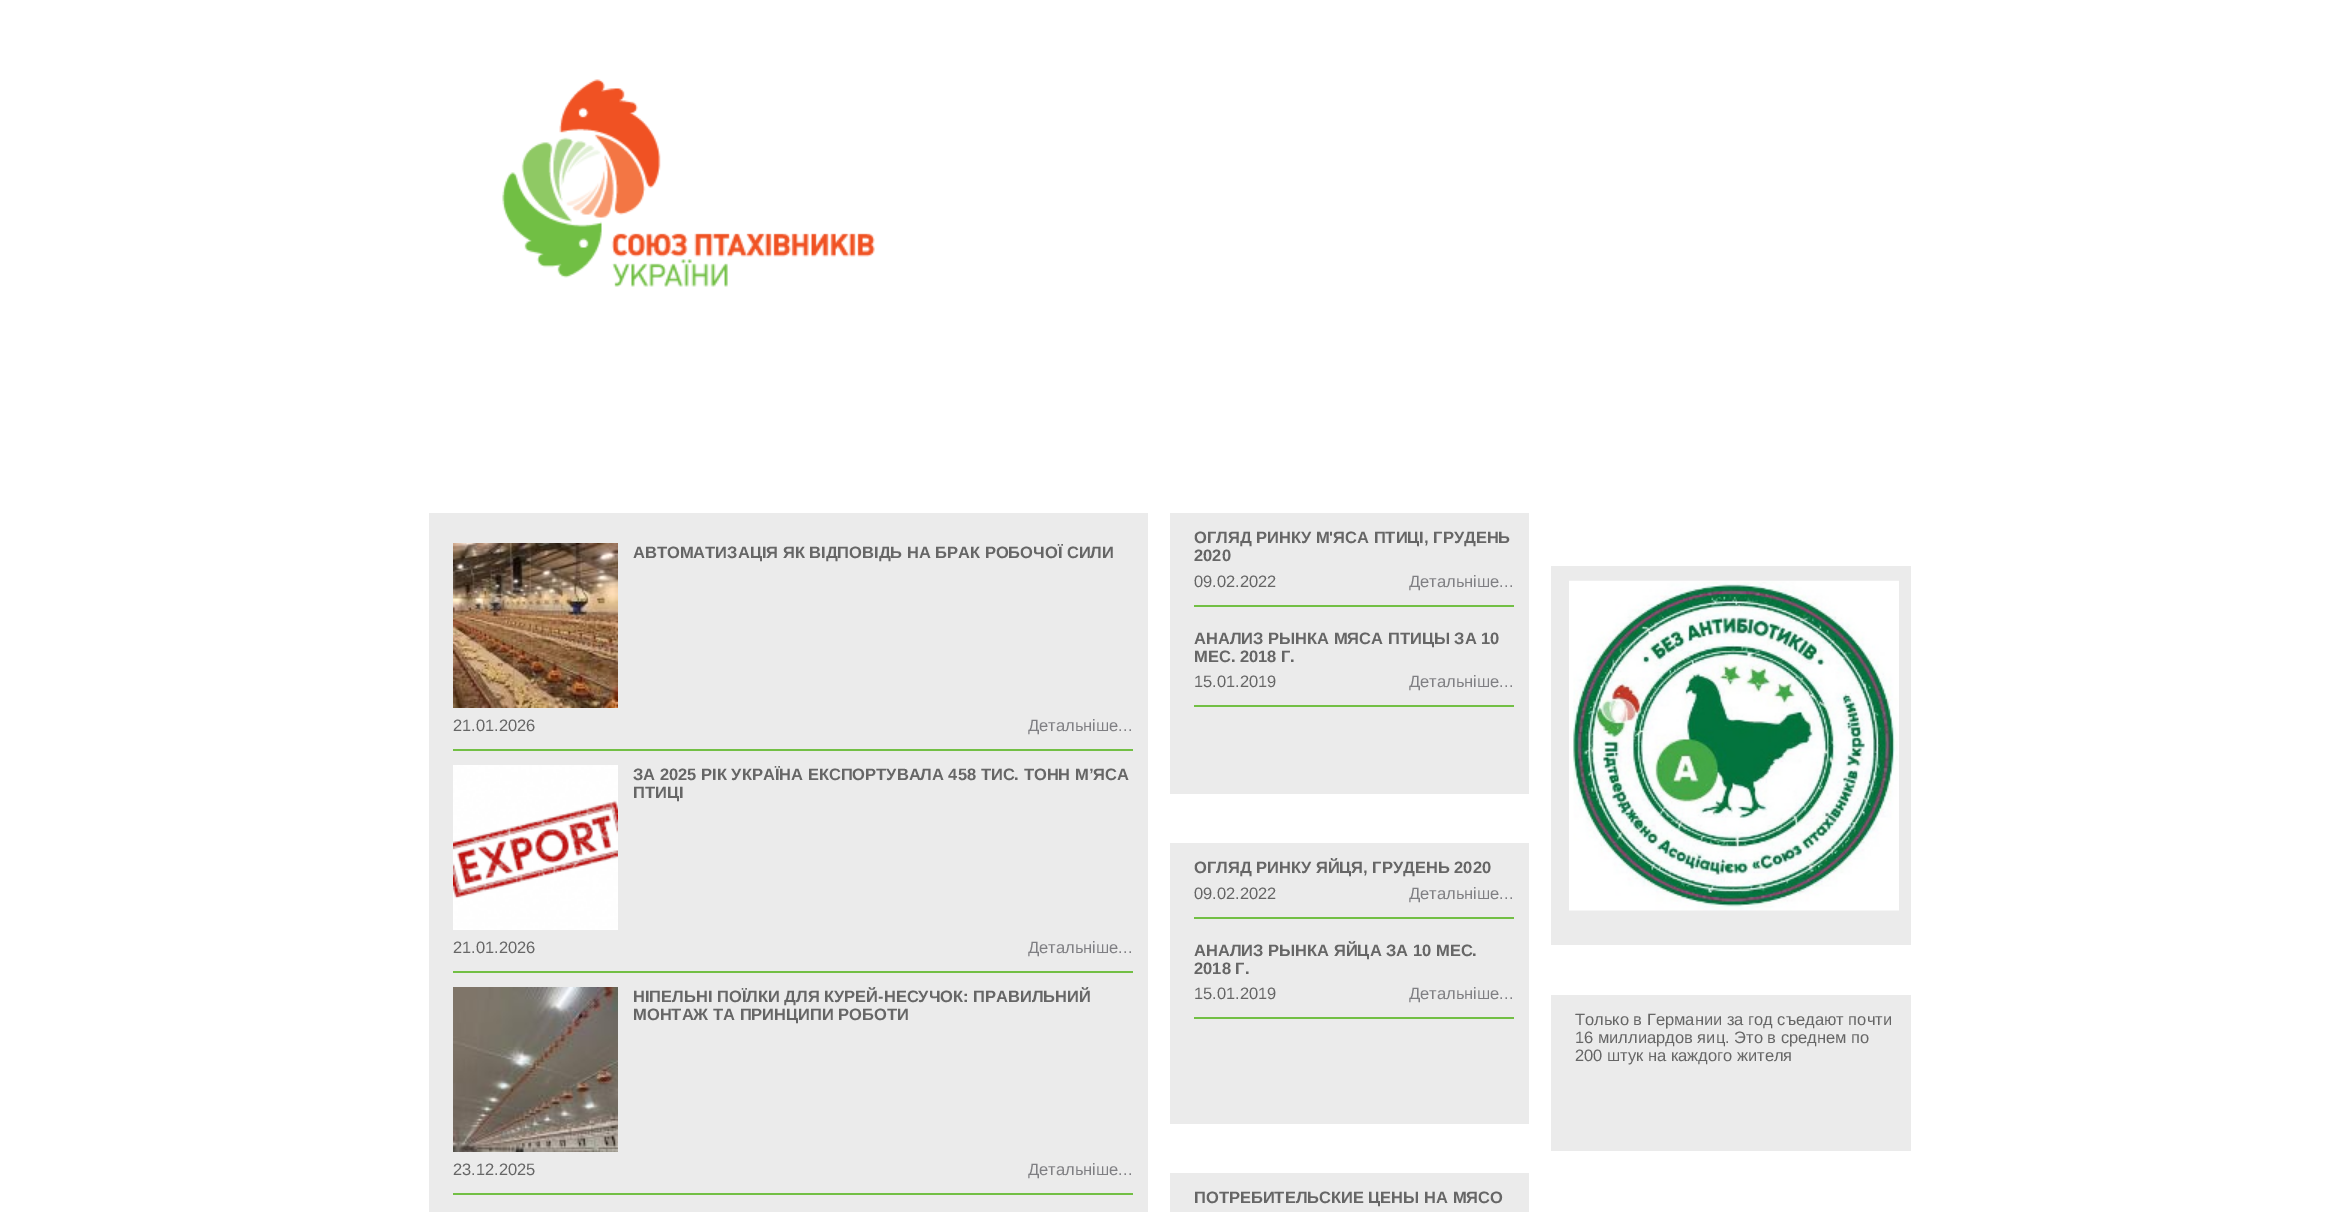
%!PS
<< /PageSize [2340 1212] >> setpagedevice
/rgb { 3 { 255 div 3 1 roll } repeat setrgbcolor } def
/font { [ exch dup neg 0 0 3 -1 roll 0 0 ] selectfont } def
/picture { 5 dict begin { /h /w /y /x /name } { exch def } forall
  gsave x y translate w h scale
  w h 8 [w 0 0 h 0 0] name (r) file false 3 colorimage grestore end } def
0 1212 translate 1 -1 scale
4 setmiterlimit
255 255 255 rgb
0 0 2340 1212 rectfill
(img/1.rgb) 502 79 373 208 picture
235 235 235 rgb
429 513 719 699 rectfill
(img/2.rgb) 453 543 165 165 picture
114 191 68 rgb
453 749 680 2 rectfill
(img/3.rgb) 453 765 165 165 picture
453 971 680 2 rectfill
(img/4.rgb) 453 987 165 165 picture
[
  [453 1193 680 2 114 191 68]
  [1170 513 359 281 235 235 235]
  [1194 605 320 2 114 191 68]
  [1194 705 320 2 114 191 68]
  [1170 843 359 281 235 235 235]
  [1194 917 320 2 114 191 68]
  [1194 1017 320 2 114 191 68]
  [1170 1173 359 39 235 235 235]
  [1551 566 360 379 235 235 235]
] { aload pop rgb rectfill } forall
(img/5.rgb) 1569 580 330 331 picture
1551 995 360 150 rectfill
1551 1145 360 6 rectfill
/LiberationSans-Bold 16.5 font
102 102 102 rgb
633 558 moveto (АВТОМАТИЗАЦІЯ ЯК ВІДПОВІДЬ НА БРАК РОБОЧОЇ СИЛИ) show
/LiberationSans-Regular 16.5 font
453 731 moveto (21.01.2026) show
127 127 131 rgb
1028 731 moveto (Детальніше...) show
/LiberationSans-Bold 16.5 font
102 102 102 rgb
633 780 moveto (ЗА 2025 РІК УКРАЇНА ЕКСПОРТУВАЛА 458 ТИС. ТОНН М’ЯСА) show
633 798 moveto (ПТИЦІ) show
/LiberationSans-Regular 16.5 font
453 953 moveto (21.01.2026) show
127 127 131 rgb
1028 953 moveto (Детальніше...) show
/LiberationSans-Bold 16.5 font
102 102 102 rgb
633 1002 moveto (НІПЕЛЬНІ ПОЇЛКИ ДЛЯ КУРЕЙ-НЕСУЧОК: ПРАВИЛЬНИЙ) show
633 1020 moveto (МОНТАЖ ТА ПРИНЦИПИ РОБОТИ) show
/LiberationSans-Regular 16.5 font
453 1175 moveto (23.12.2025) show
127 127 131 rgb
1028 1175 moveto (Детальніше...) show
/LiberationSans-Bold 16.5 font
102 102 102 rgb
1194 543 moveto (ОГЛЯД РИНКУ М'ЯСА ПТИЦІ, ГРУДЕНЬ) show
1194 561 moveto (2020) show
/LiberationSans-Regular 16.5 font
1194 587 moveto (09.02.2022) show
127 127 131 rgb
1409 587 moveto (Детальніше...) show
/LiberationSans-Bold 16.5 font
102 102 102 rgb
1194 644 moveto (АНАЛИЗ РЫНКА МЯСА ПТИЦЫ ЗА 10) show
1194 662 moveto (МЕС. 2018 Г.) show
/LiberationSans-Regular 16.5 font
1194 687 moveto (15.01.2019) show
127 127 131 rgb
1409 687 moveto (Детальніше...) show
/LiberationSans-Bold 16.5 font
102 102 102 rgb
1194 873 moveto (ОГЛЯД РИНКУ ЯЙЦЯ, ГРУДЕНЬ 2020) show
/LiberationSans-Regular 16.5 font
1194 899 moveto (09.02.2022) show
127 127 131 rgb
1409 899 moveto (Детальніше...) show
/LiberationSans-Bold 16.5 font
102 102 102 rgb
1194 956 moveto (АНАЛИЗ РЫНКА ЯЙЦА ЗА 10 МЕС.) show
1194 974 moveto (2018 Г.) show
/LiberationSans-Regular 16.5 font
1194 999 moveto (15.01.2019) show
127 127 131 rgb
1409 999 moveto (Детальніше...) show
/LiberationSans-Bold 16.5 font
102 102 102 rgb
1194 1203 moveto (ПОТРЕБИТЕЛЬСКИЕ ЦЕНЫ НА МЯСО) show
/LiberationSans-Regular 16.5 font
[
  [(Только в Германии за год съедают почти) 1575 1025]
  [(16 миллиардов яиц. Это в среднем по) 1575 1043]
  [(200 штук на каждого жителя) 1575 1061]
] { aload pop moveto show } forall
showpage
